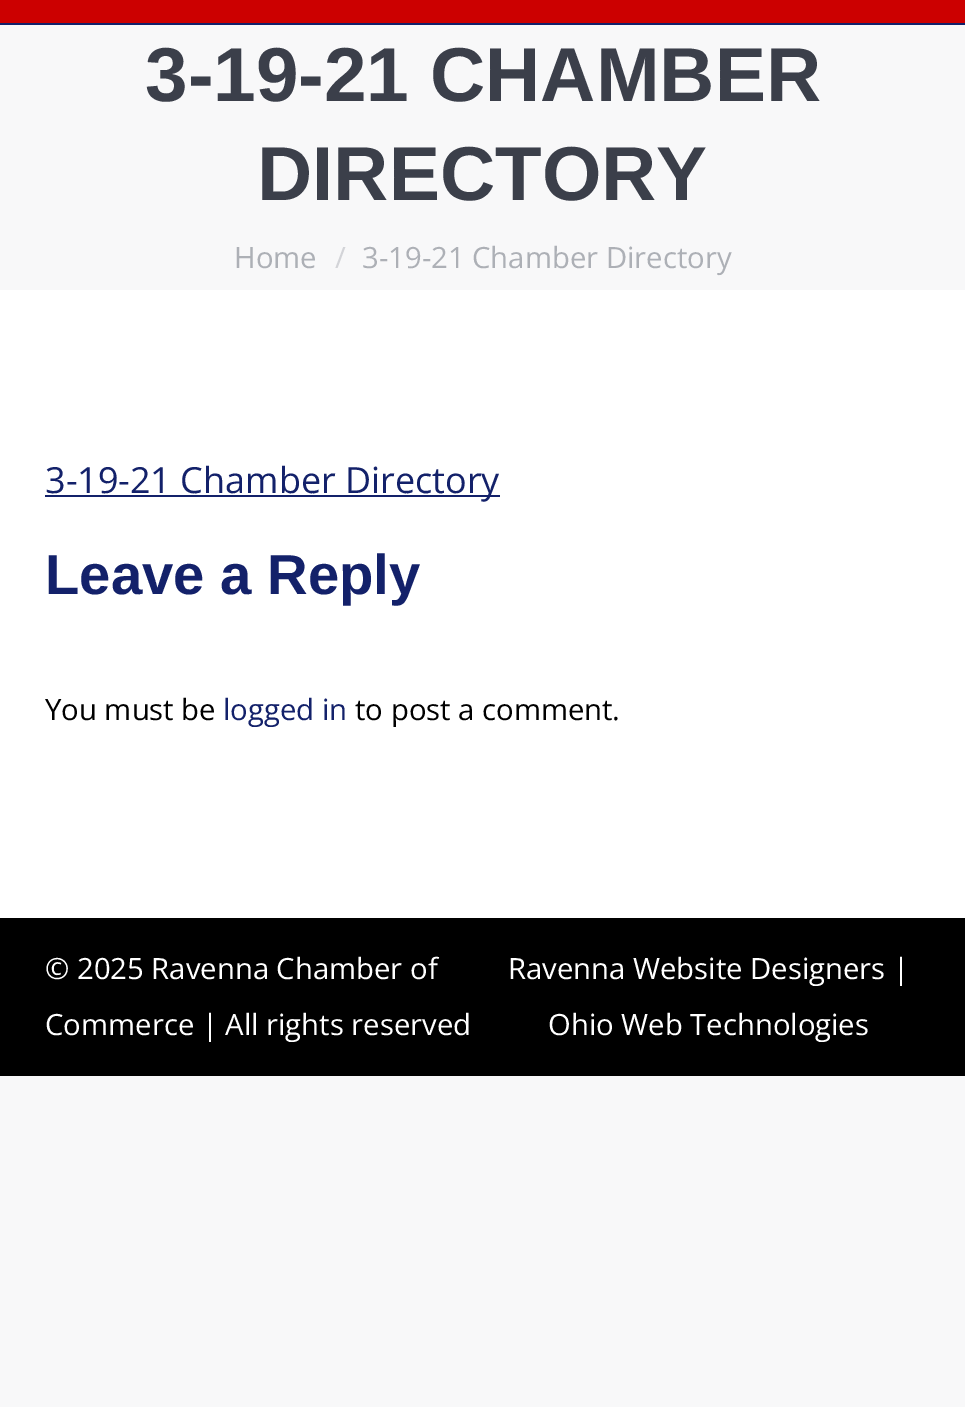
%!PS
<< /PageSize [965 1407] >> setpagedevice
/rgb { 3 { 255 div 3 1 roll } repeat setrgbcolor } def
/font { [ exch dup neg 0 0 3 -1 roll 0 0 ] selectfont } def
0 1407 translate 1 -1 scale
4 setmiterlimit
248 248 249 rgb
0 0 965 1407 rectfill
[
  [0 290 965 628 255 255 255]
  [0 23 965 2 19 33 106]
  [0 0 965 23 204 0 0]
  [45 495 455 2 19 33 106]
  [0 918 965 158 0 0 0]
] { aload pop rgb rectfill } forall
/Arimo-Bold 76.5 font
59 63 74 rgb
145 101 moveto (3-19-21 CHAMBER) show
257 200 moveto (DIRECTORY) show
/OpenSans-Regular 29.25 font
173 176 182 rgb
234 268 moveto (Home) show
211 212 216 rgb
335 268 moveto (/) show
173 176 182 rgb
362 268 moveto (3-19-21 Chamber Directory) show
/OpenSans-Regular 36 font
19 33 106 rgb
45 493 moveto (3-19-21 Chamber Directory) show
/Arimo-Bold 56.25 font
45 594 moveto (Leave a Reply) show
/OpenSans-Regular 29.25 font
0 0 0 rgb
45 720 moveto (You must be) show
19 33 106 rgb
223 720 moveto (logged in) show
0 0 0 rgb
355 720 moveto (to post a comment.) show
255 255 255 rgb
[
  [(© 2025 Ravenna Chamber of) 45 979]
  [(Commerce | All rights reserved) 45 1035]
  [(Ravenna Website Designers |) 508 979]
  [(Ohio Web Technologies) 548 1035]
] { aload pop moveto show } forall
showpage
